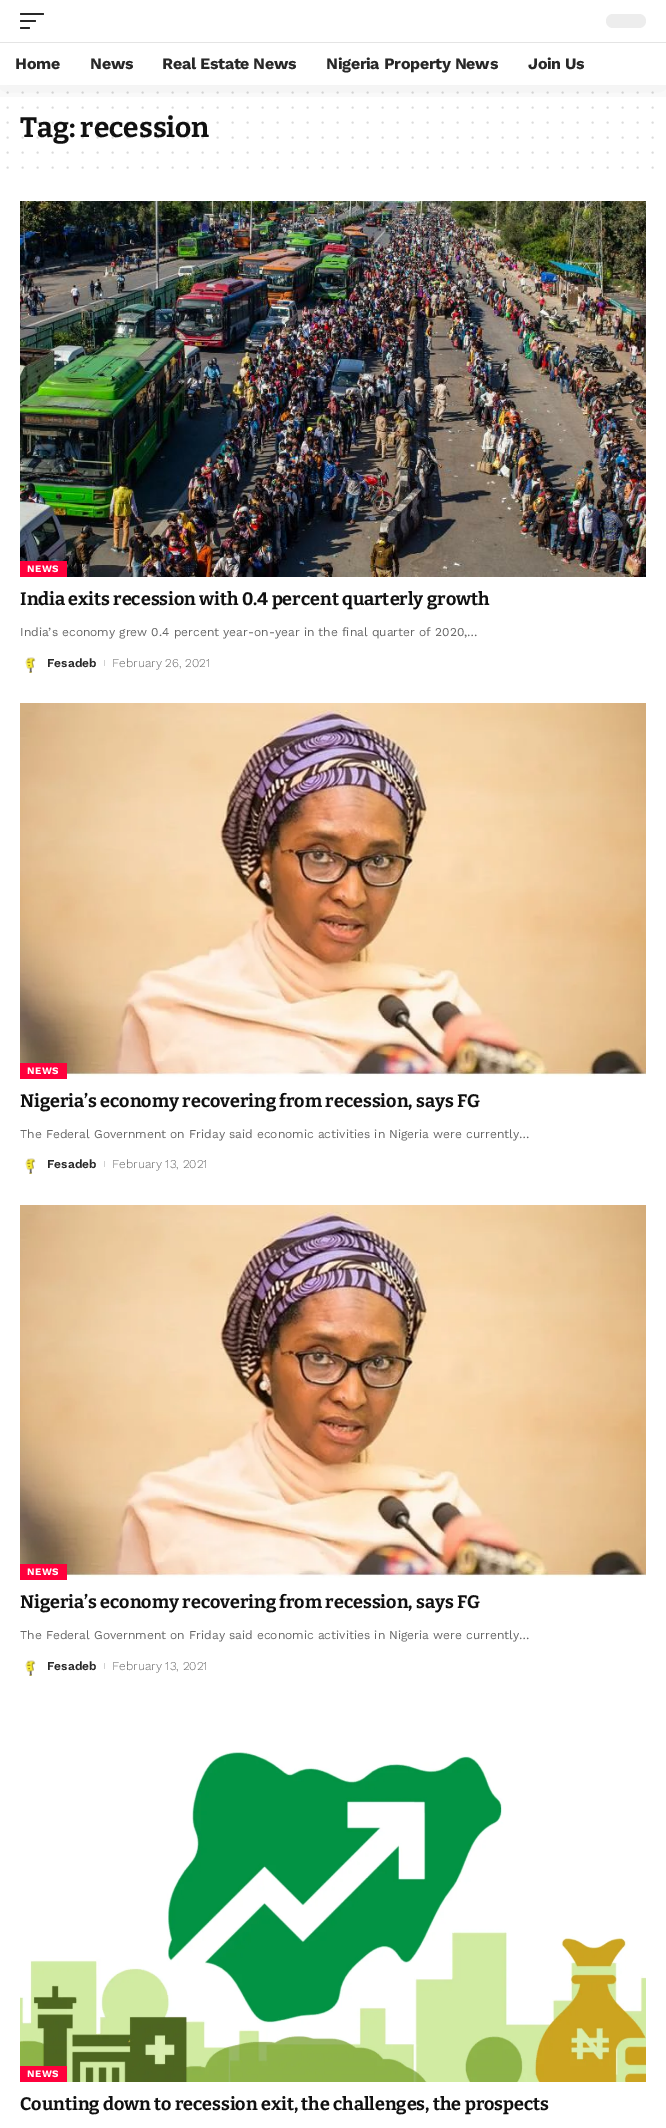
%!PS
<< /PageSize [666 2128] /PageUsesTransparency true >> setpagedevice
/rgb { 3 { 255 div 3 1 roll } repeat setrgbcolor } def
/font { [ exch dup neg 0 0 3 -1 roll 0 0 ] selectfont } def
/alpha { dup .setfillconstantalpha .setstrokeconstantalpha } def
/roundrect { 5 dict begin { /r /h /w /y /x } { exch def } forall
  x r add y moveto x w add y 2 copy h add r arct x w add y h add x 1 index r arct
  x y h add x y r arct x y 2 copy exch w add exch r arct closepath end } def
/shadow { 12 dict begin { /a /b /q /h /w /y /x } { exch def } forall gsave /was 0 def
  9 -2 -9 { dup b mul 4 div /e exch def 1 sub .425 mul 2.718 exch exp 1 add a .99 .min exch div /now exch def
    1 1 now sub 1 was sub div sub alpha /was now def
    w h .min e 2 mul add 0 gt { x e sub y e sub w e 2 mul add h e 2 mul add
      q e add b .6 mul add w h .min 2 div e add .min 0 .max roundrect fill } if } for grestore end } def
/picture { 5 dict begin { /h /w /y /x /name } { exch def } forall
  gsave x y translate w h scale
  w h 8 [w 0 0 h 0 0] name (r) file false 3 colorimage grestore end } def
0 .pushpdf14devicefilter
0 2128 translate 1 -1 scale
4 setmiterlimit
255 255 255 rgb
0 0 666 2128 rectfill
219 219 219 rgb
2 setlinewidth
1 setlinecap
[0 15] 0 setdash
7.5 92.5 moveto 652.7 92.5 lineto stroke
7.5 107.5 moveto 652.7 107.5 lineto stroke
7.5 152.5 moveto 652.7 152.5 lineto stroke
7.5 167.5 moveto 652.7 167.5 lineto stroke
(img/1.rgb) 20 201 626 376 picture
255 0 60 rgb
20 561 47 16 rectfill
(img/2.rgb) 25 657 11 16 picture
209 209 209 rgb
104 660 1 6 rectfill
(img/3.rgb) 20 703 626 374 picture
255 0 60 rgb
20 1063 47 16 rectfill
(img/2.rgb) 25 1158 11 16 picture
209 209 209 rgb
104 1161 1 6 rectfill
(img/4.rgb) 20 1205 626 373 picture
255 0 60 rgb
20 1564 47 16 rectfill
(img/2.rgb) 25 1660 11 16 picture
209 209 209 rgb
104 1663 1 6 rectfill
(img/5.rgb) 20 1752 626 330 picture
255 0 60 rgb
20 2066 47 16 rectfill
/Bitter-Bold 28 font
17 17 17 rgb
20 137 moveto (Tag: recession) show
0.15 alpha
7.5 122.5 moveto 652.7 122.5 lineto stroke
gsave
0 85 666 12 rectclip
1 alpha
0 0 0 rgb
0 4 666 85 0 15 0.07 shadow
grestore
/WorkSans-Bold 16 font
1 alpha
40 40 40 rgb
528 69 moveto -0.3 0 (Join Us) ashow
326 69 moveto -0.3 0 (Nigeria Property News) ashow
162 69 moveto -0.3 0 (Real Estate News) ashow
90 69 moveto -0.3 0 (News) ashow
15 69 moveto -0.3 0 (Home) ashow
228 228 228 rgb
0 42 666 1 rectfill
237 237 237 rgb
606 14 40 14 7 roundrect fill
40 40 40 rgb
20 27 10 2 1 roundrect fill
20 20 16 2 1 roundrect fill
20 13 24 2 1 roundrect fill
0.15 alpha
17 17 17 rgb
7.5 137.5 moveto 652.7 137.5 lineto stroke
/WorkSans-Bold 10 font
1 alpha
255 255 255 rgb
27 572 moveto 0.5 0 (NEWS) ashow
/Bitter-Bold 18 font
17 17 17 rgb
20 605 moveto (India exits recession with 0.4 percent quarterly growth) show
/WorkSans-Regular 12 font
102 102 102 rgb
20 636 moveto (India’s economy grew 0.4 percent year-on-year in the final quarter of 2020,…) show
/WorkSans-SemiBold 12 font
40 40 40 rgb
47 667 moveto (Fesadeb) show
/WorkSans-Light 12 font
102 102 102 rgb
112 667 moveto (February 26, 2021) show
/WorkSans-Bold 10 font
255 255 255 rgb
27 1074 moveto 0.5 0 (NEWS) ashow
/Bitter-Bold 18 font
17 17 17 rgb
20 1107 moveto (Nigeria’s economy recovering from recession, says FG) show
/WorkSans-Regular 12 font
102 102 102 rgb
20 1138 moveto (The Federal Government on Friday said economic activities in Nigeria were currently…) show
/WorkSans-SemiBold 12 font
40 40 40 rgb
47 1168 moveto (Fesadeb) show
/WorkSans-Light 12 font
102 102 102 rgb
112 1168 moveto (February 13, 2021) show
/WorkSans-Bold 10 font
255 255 255 rgb
27 1575 moveto 0.5 0 (NEWS) ashow
/Bitter-Bold 18 font
17 17 17 rgb
20 1608 moveto (Nigeria’s economy recovering from recession, says FG) show
/WorkSans-Regular 12 font
102 102 102 rgb
20 1639 moveto (The Federal Government on Friday said economic activities in Nigeria were currently…) show
/WorkSans-SemiBold 12 font
40 40 40 rgb
47 1670 moveto (Fesadeb) show
/WorkSans-Light 12 font
102 102 102 rgb
112 1670 moveto (February 13, 2021) show
/WorkSans-Bold 10 font
255 255 255 rgb
27 2077 moveto 0.5 0 (NEWS) ashow
/Bitter-Bold 18 font
17 17 17 rgb
20 2110 moveto (Counting down to recession exit, the challenges, the prospects) show
.poppdf14devicefilter showpage
